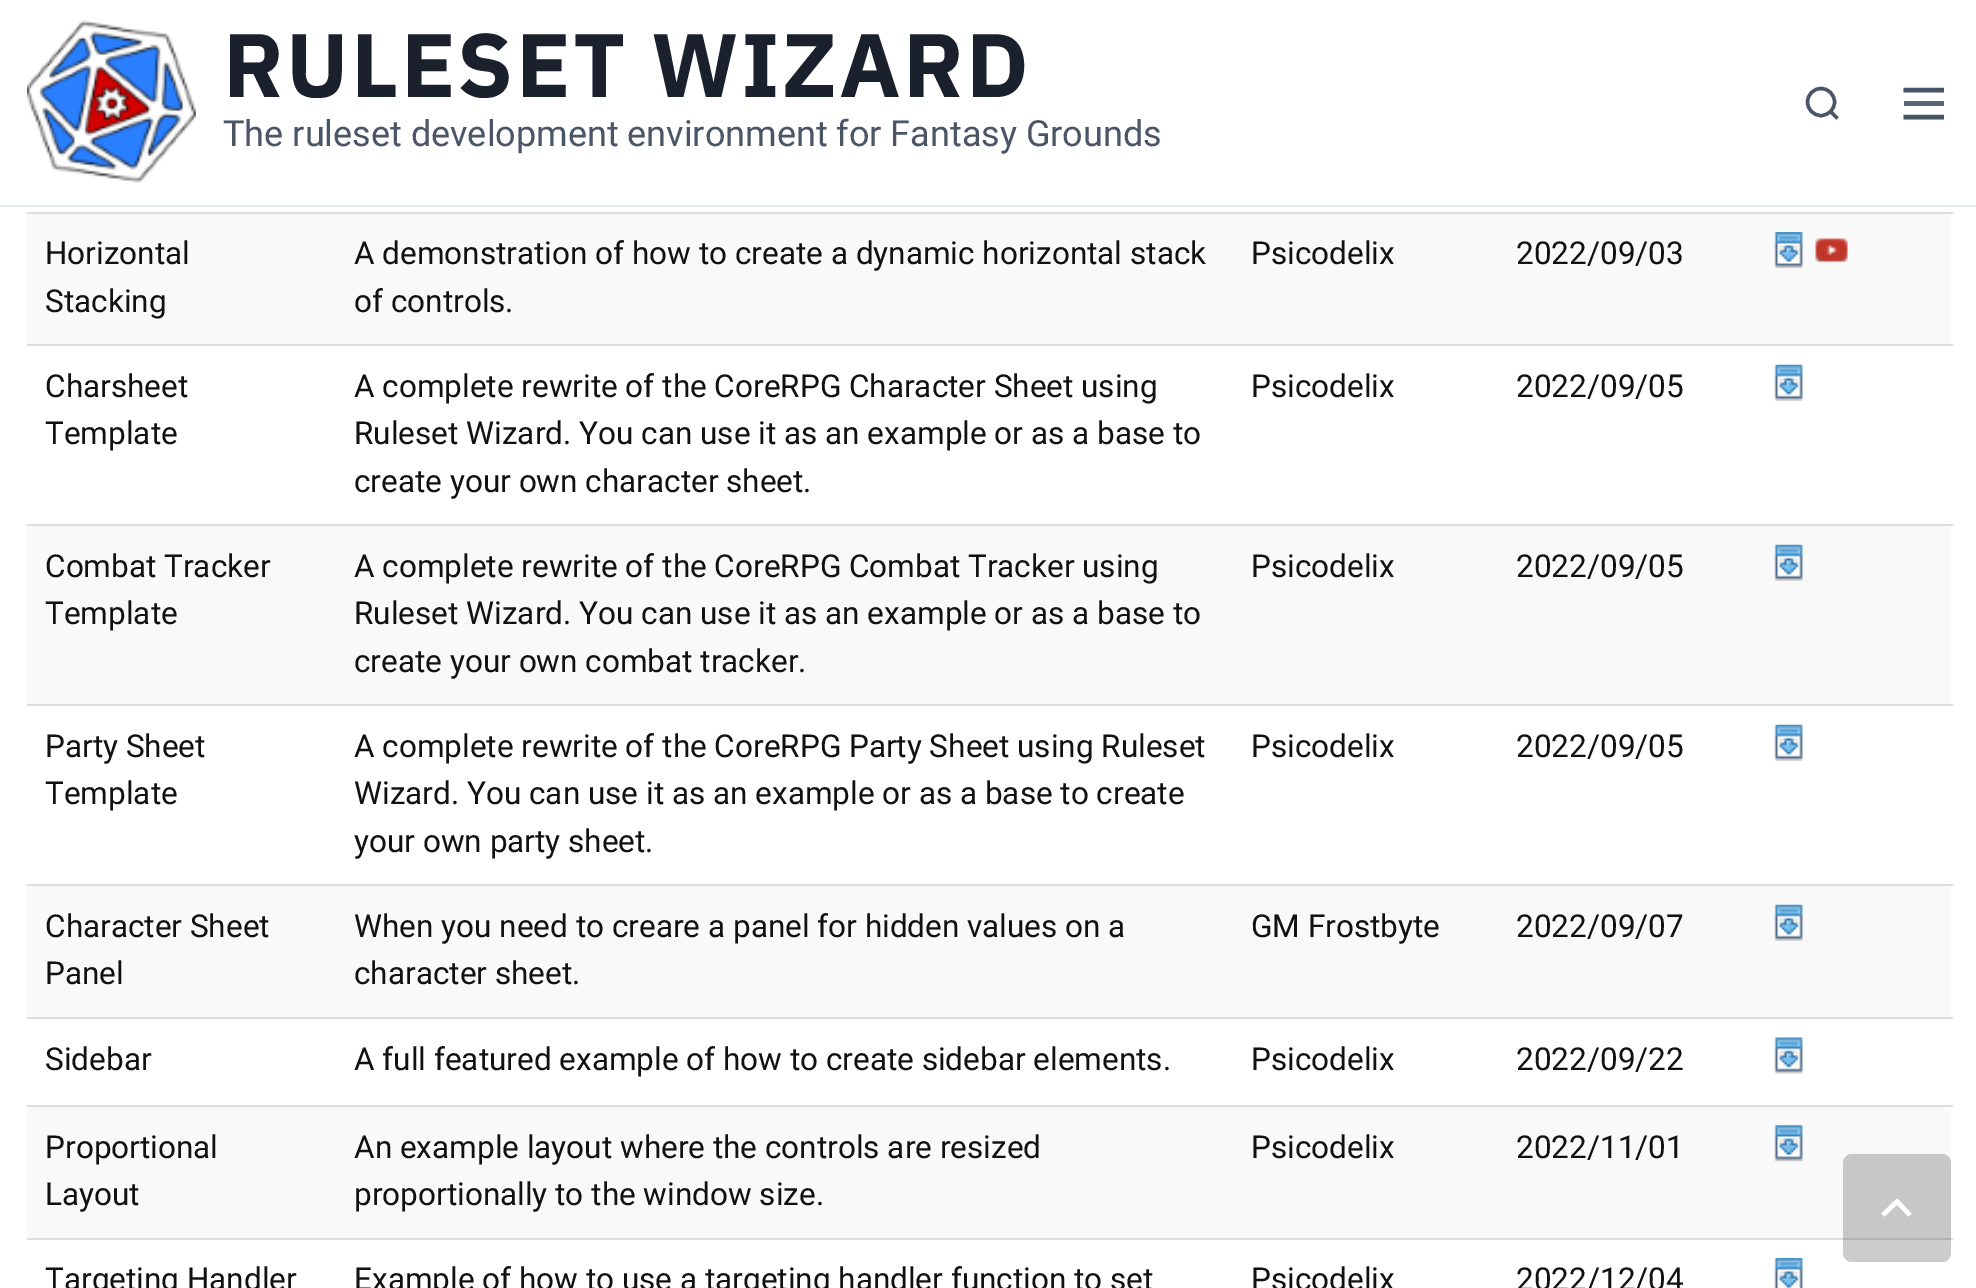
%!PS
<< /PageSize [1976 1288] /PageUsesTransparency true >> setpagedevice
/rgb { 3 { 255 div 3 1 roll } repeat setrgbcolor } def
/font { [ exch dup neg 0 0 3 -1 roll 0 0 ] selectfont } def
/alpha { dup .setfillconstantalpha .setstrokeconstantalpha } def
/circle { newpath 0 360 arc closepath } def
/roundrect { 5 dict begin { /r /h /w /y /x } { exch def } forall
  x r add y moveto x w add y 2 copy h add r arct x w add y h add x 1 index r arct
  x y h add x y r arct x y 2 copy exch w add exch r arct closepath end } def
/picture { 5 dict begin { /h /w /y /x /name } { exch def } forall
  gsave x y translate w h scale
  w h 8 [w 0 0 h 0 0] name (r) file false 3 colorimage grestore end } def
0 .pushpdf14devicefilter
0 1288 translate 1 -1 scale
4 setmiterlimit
255 255 255 rgb
0 0 1976 1288 rectfill
226 232 240 rgb
0 205 1976 2 rectfill
(img/1.rgb) 27 20 169 163 picture
74 85 104 rgb
3.4 setlinewidth
1821 102 13.5 circle stroke
1837.5 118.5 moveto 1830.5 111.5 lineto stroke
92 102 119 rgb
1904 101 40 5 rectfill
74 85 104 rgb
4.5 setlinewidth
1903.5 90 moveto 1944 90 lineto 1903.5 117 moveto 1944 117 lineto stroke
221 221 221 rgb
27 212 1926 2 rectfill
249 249 249 rgb
27 214 1924 130 rectfill
(img/2.rgb) 1774 232 29 36 picture
(img/3.rgb) 1815 238 33 26 picture
221 221 221 rgb
27 344 1926 2 rectfill
(img/4.rgb) 1774 364 29 37 picture
27 524 1926 2 rectfill
249 249 249 rgb
27 526 1924 178 rectfill
(img/5.rgb) 1774 544 29 37 picture
221 221 221 rgb
27 704 1926 2 rectfill
(img/4.rgb) 1774 724 29 37 picture
27 884 1926 2 rectfill
249 249 249 rgb
27 886 1924 131 rectfill
(img/5.rgb) 1774 904 29 37 picture
221 221 221 rgb
27 1017 1926 2 rectfill
(img/6.rgb) 1774 1037 29 37 picture
27 1105 1926 2 rectfill
249 249 249 rgb
27 1107 1924 131 rectfill
(img/7.rgb) 1774 1125 29 37 picture
221 221 221 rgb
27 1238 1926 2 rectfill
(img/8.rgb) 1774 1258 29 30 picture
0.2 alpha
0 0 0 rgb
1843 1154 108 108 9 roundrect fill
1 alpha
255 255 255 rgb
1910 1215 moveto 1897 1201.5 lineto 1883 1215 lineto stroke
/IBMPlexSans-Bold 90 font
26 32 44 rgb
223 97 moveto 2.25 0 (RULESET WIZARD) ashow
/Roboto-Regular 36 font
74 85 104 rgb
223 146 moveto (The ruleset development environment for Fantasy Grounds) show
/Roboto-Regular 31.5 font
17 17 17 rgb
[
  [(Horizontal) 45 264]
  [(Stacking) 45 312]
  [(A demonstration of how to create a dynamic horizontal stack) 354 264]
  [(of controls.) 354 312]
  [(Psicodelix) 1251 264]
  [(2022/09/03) 1516 264]
  [(Charsheet) 45 397]
  [(Template) 45 444]
  [(A complete rewrite of the CoreRPG Character Sheet using) 354 397]
  [(Ruleset Wizard. You can use it as an example or as a base to) 354 444]
  [(create your own character sheet.) 354 492]
  [(Psicodelix) 1251 397]
  [(2022/09/05) 1516 397]
  [(Combat Tracker) 45 577]
  [(Template) 45 624]
  [(A complete rewrite of the CoreRPG Combat Tracker using) 354 577]
  [(Ruleset Wizard. You can use it as an example or as a base to) 354 624]
  [(create your own combat tracker.) 354 672]
  [(Psicodelix) 1251 577]
  [(2022/09/05) 1516 577]
  [(Party Sheet) 45 757]
  [(Template) 45 804]
  [(A complete rewrite of the CoreRPG Party Sheet using Ruleset) 354 757]
  [(Wizard. You can use it as an example or as a base to create) 354 804]
  [(your own party sheet.) 354 852]
  [(Psicodelix) 1251 757]
  [(2022/09/05) 1516 757]
  [(Character Sheet) 45 937]
  [(Panel) 45 984]
  [(When you need to creare a panel for hidden values on a) 354 937]
  [(character sheet.) 354 984]
  [(GM Frostbyte) 1251 937]
  [(2022/09/07) 1516 937]
  [(Sidebar) 45 1070]
  [(A full featured example of how to create sidebar elements.) 354 1070]
  [(Psicodelix) 1251 1070]
  [(2022/09/22) 1516 1070]
  [(Proportional) 45 1158]
  [(Layout) 45 1205]
  [(An example layout where the controls are resized) 354 1158]
  [(proportionally to the window size.) 354 1205]
  [(Psicodelix) 1251 1158]
  [(2022/11/01) 1516 1158]
  [(Targeting Handler) 45 1290]
  [(Example of how to use a targeting handler function to set) 354 1290]
  [(Psicodelix) 1251 1290]
  [(2022/12/04) 1516 1290]
] { aload pop moveto show } forall
.poppdf14devicefilter showpage
